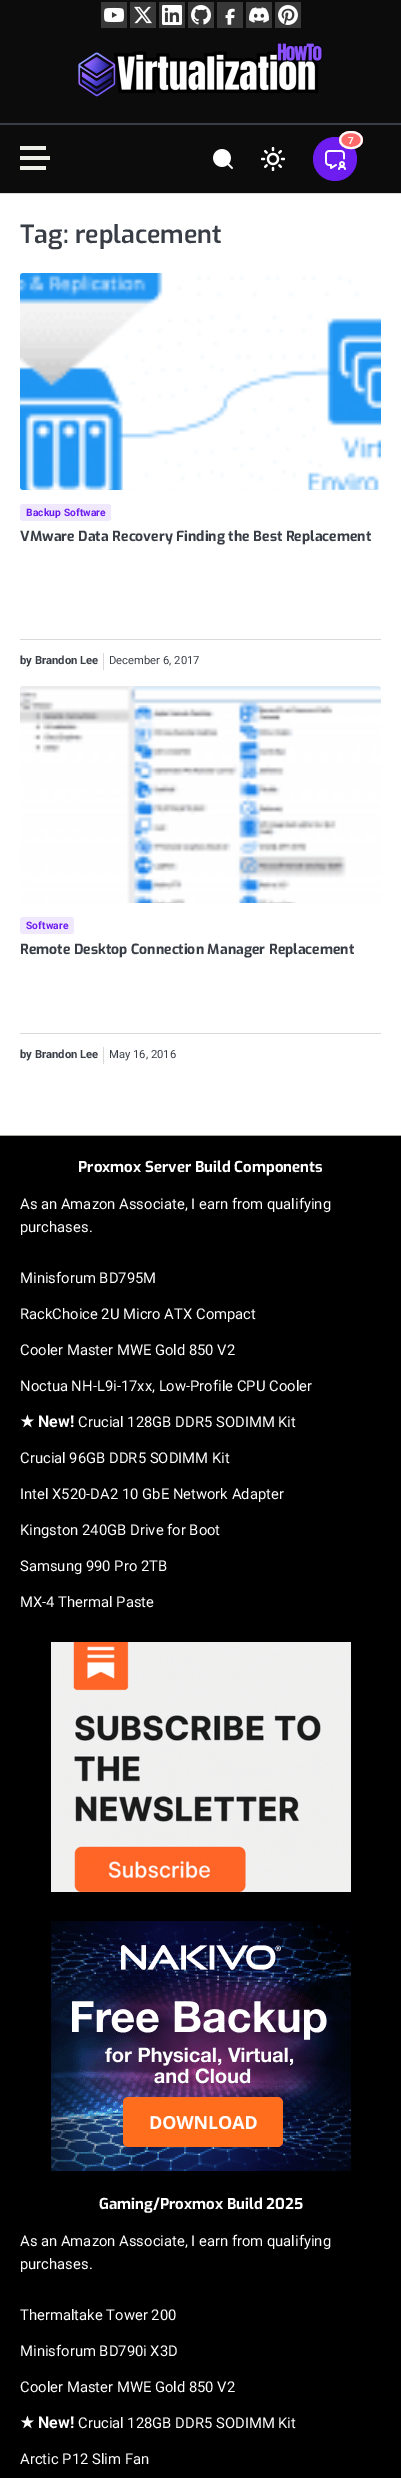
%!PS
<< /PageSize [401 2478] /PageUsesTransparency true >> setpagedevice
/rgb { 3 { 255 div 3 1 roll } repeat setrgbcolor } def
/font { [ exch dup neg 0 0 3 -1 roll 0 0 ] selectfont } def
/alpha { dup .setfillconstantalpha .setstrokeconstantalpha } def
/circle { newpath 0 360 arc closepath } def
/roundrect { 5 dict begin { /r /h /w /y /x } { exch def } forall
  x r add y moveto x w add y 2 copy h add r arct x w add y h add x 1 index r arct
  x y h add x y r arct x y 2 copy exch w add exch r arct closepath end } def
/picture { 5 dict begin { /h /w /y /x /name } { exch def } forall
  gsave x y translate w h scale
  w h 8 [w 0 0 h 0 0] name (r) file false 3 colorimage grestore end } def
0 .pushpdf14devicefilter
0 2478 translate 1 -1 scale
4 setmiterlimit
255 255 255 rgb
0 0 401 2478 rectfill
12 12 12 rgb
0 0 401 193 rectfill
56 56 56 rgb
101 2 26 26 rectfill
(img/1.rgb) 104 7 20 16 picture
130 2 26 26 rectfill
(img/2.rgb) 134 6 18 18 picture
159 2 26 26 rectfill
(img/3.rgb) 162 5 20 20 picture
188 2 26 26 rectfill
(img/4.rgb) 191 5 20 20 picture
217 2 26 26 rectfill
(img/5.rgb) 225 8 10 17 picture
246 2 26 26 rectfill
(img/6.rgb) 249 7 20 16 picture
275 2 26 26 rectfill
(img/7.rgb) 278 5 20 20 picture
(img/8.rgb) 78 43 245 54 picture
57 62 70 rgb
0 123 401 2 rectfill
217 217 217 rgb
0 193 401 1 rectfill
109 29 239 rgb
335 159 22 circle fill
255 107 107 rgb
351 131 moveto 357.5 131 363 135 363 140 curveto 363 145 357.5 149 351 149 curveto 344.5 149 339 145 339 140 curveto 339 135 344.5 131 351 131 curveto closepath fill
255 255 255 rgb
2 setlinewidth
351 132 moveto 365.5 132 365.5 148 351 148 curveto 336.5 148 336.5 132 351 132 curveto closepath stroke
(img/9.rgb) 325 150 21 20 picture
(img/10.rgb) 213 149 20 20 picture
(img/11.rgb) 261 147 24 24 picture
[
  [20 146 26 4 238 239 233]
  [20 156 30 4 238 239 233]
  [20 166 26 4 238 239 233]
] { aload pop rgb rectfill } forall
(img/12.rgb) 20 273 361 217 picture
0.1 alpha
109 29 239 rgb
20 504 91 17 3 roundrect fill
1 alpha
217 217 217 rgb
20 639 361 1 rectfill
103 653 1 17 rectfill
(img/13.rgb) 20 686 361 217 picture
0.1 alpha
109 29 239 rgb
20 917 54 17 3 roundrect fill
1 alpha
[
  [20 1033 361 1 217 217 217]
  [103 1047 1 17 217 217 217]
  [0 1136 401 1342 0 0 0]
  [0 1135 401 1 166 166 161]
] { aload pop rgb rectfill } forall
(img/14.rgb) 51 1642 300 250 picture
(img/15.rgb) 51 1921 300 250 picture
/Roboto-Bold 10 font
255 255 255 rgb
348 144 moveto (7) show
/Exo-SemiBold 25 font
57 62 70 rgb
20 243 moveto (Tag: replacement) show
/Roboto-Bold 10.25 font
109 29 239 rgb
26 516 moveto 0.1 0 (Backup Software) ashow
/Exo-Bold 14 font
57 62 70 rgb
20 541 moveto (VMware Data Recovery Finding the Best Replacement) show
/Roboto-Bold 11.25 font
20 664 moveto (by Brandon Lee) show
/Roboto-Regular 11.25 font
109 664 moveto (December 6, 2017) show
/Roboto-Bold 10.25 font
109 29 239 rgb
26 929 moveto 0.1 0 (Software) ashow
/Exo-Bold 14 font
57 62 70 rgb
20 954 moveto (Remote Desktop Connection Manager Replacement) show
/Roboto-Bold 11.25 font
20 1058 moveto (by Brandon Lee) show
/Roboto-Regular 11.25 font
109 1058 moveto (May 16, 2016) show
/Exo-Bold 15 font
255 255 255 rgb
78 1172 moveto (Proxmox Server Build Components) show
/Roboto-Regular 14.8 font
[
  [(As an Amazon Associate, I earn from qualifying) 20 1209]
  [(purchases.) 20 1232]
  [(Minisforum BD795M) 20 1283]
  [(RackChoice 2U Micro ATX Compact) 20 1319]
  [(Cooler Master MWE Gold 850 V2) 20 1355]
  [(Noctua NH-L9i-17xx, Low-Profile CPU Cooler) 20 1391]
] { aload pop moveto show } forall
/DejaVuSans-Bold 16 font
20 1427 moveto (★) show
/Roboto-Bold 16 font
38 1427 moveto (New!) show
/Roboto-Regular 14.8 font
[
  [(Crucial 128GB DDR5 SODIMM Kit) 78 1427]
  [(Crucial 96GB DDR5 SODIMM Kit) 20 1463]
  [(Intel X520-DA2 10 GbE Network Adapter) 20 1499]
  [(Kingston 240GB Drive for Boot) 20 1535]
  [(Samsung 990 Pro 2TB) 20 1571]
  [(MX-4 Thermal Paste) 20 1607]
] { aload pop moveto show } forall
/Exo-Bold 15 font
99 2209 moveto (Gaming/Proxmox Build 2025) show
/Roboto-Regular 14.8 font
[
  [(As an Amazon Associate, I earn from qualifying) 20 2246]
  [(purchases.) 20 2269]
  [(Thermaltake Tower 200) 20 2320]
  [(Minisforum BD790i X3D) 20 2356]
  [(Cooler Master MWE Gold 850 V2) 20 2392]
] { aload pop moveto show } forall
/DejaVuSans-Bold 16 font
20 2428 moveto (★) show
/Roboto-Bold 16 font
38 2428 moveto (New!) show
/Roboto-Regular 14.8 font
78 2428 moveto (Crucial 128GB DDR5 SODIMM Kit) show
20 2464 moveto (Arctic P12 Slim Fan) show
.poppdf14devicefilter showpage
